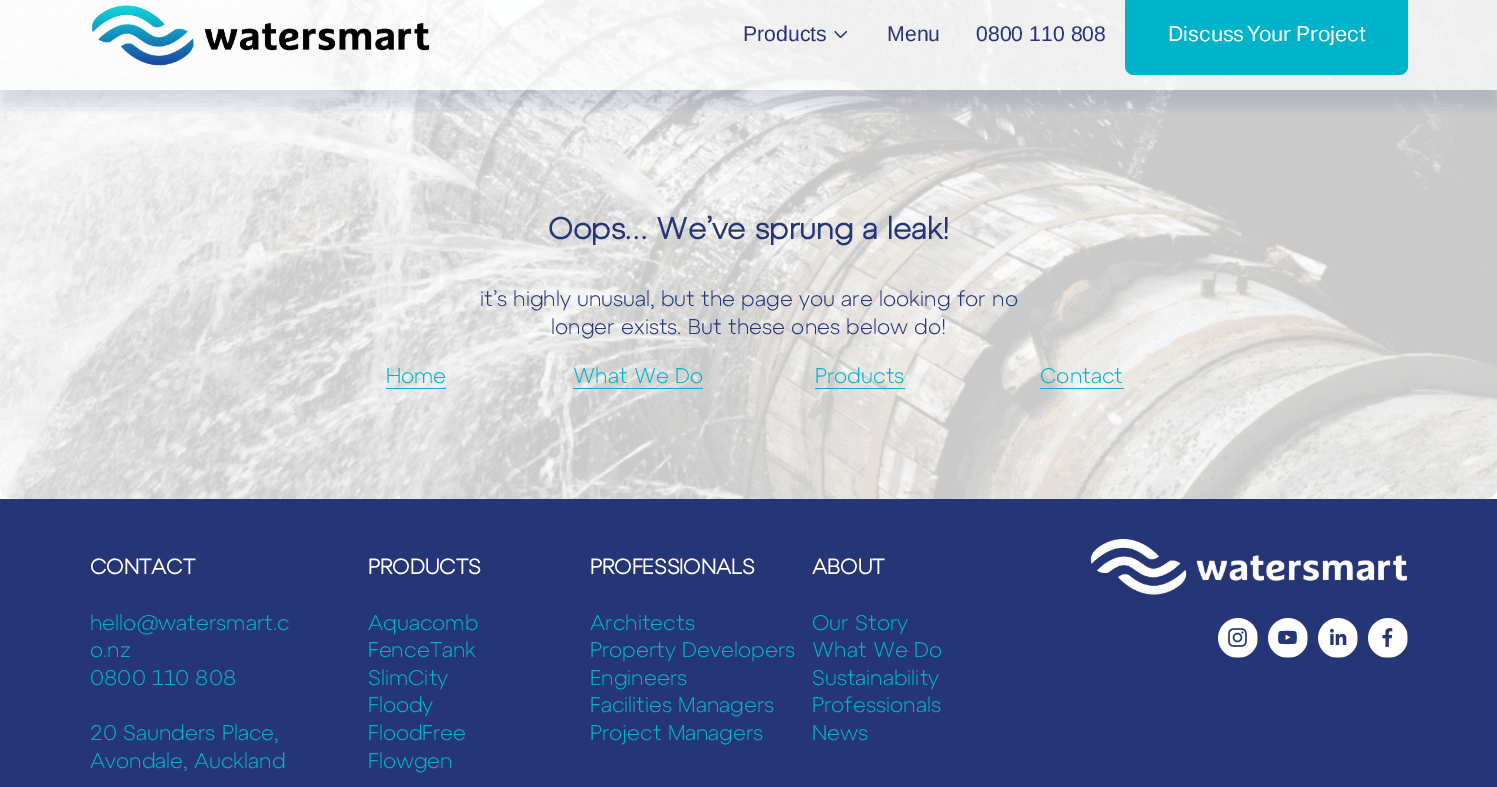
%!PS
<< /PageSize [1497 787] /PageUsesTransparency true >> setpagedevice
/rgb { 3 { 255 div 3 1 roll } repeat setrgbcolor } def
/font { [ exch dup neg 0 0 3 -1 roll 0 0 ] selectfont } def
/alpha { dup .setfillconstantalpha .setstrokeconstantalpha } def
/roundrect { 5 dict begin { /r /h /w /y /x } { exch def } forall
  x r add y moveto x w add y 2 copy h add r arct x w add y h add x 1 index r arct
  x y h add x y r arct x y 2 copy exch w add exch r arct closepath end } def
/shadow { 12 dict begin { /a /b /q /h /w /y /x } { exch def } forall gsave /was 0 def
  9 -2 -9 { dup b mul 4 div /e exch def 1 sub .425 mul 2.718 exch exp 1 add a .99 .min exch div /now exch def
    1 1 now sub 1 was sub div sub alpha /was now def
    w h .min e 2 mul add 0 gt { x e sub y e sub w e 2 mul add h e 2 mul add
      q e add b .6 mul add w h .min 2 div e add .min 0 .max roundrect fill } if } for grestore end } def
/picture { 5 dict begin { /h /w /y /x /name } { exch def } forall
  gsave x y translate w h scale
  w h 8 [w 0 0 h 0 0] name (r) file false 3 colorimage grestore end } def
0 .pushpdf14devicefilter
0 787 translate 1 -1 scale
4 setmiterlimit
255 255 255 rgb
0 0 1497 787 rectfill
(img/2.rgb) 0 0 1497 499 picture
gsave
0 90 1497 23 rectclip
37 53 118 rgb
0 -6 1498 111 0 7.5 0.15 shadow
grestore
0.7 alpha
0 0 1497 90 rectfill
1 alpha
(img/1.rgb) 92 5 338 61 picture
37 53 118 rgb
1.2 setlinewidth
1 setlinecap
1 setlinejoin
846.5 31.5 moveto 840.5 37.5 lineto 835 31.5 lineto stroke
0 179 201 rgb
1125 -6 283 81 9 roundrect fill
[
  [386 388 60 1 0 179 201]
  [573 388 130 1 0 179 201]
  [815 388 90 1 0 179 201]
  [1040 388 84 1 0 179 201]
  [0 499 1497 288 37 53 118]
] { aload pop rgb rectfill } forall
(img/3.rgb) 1090 538 317 57 picture
(img/4.rgb) 1218 618 40 40 picture
(img/5.rgb) 1268 618 40 40 picture
(img/6.rgb) 1318 618 40 40 picture
(img/7.rgb) 1368 618 40 40 picture
/LiberationSans-Regular 21.25 font
[
  [(Products) 743 41]
  [(Menu) 887 41]
  [(0800 110 808) 976 41]
] { aload pop moveto show } forall
/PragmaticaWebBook-Regular 21.25 font
255 255 255 rgb
1168 41 moveto (Discuss Your Project) show
/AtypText-Bold 30.25 font
37 53 118 rgb
548 239 moveto (Oops… We’ve sprung a leak!) show
/AtypText-Light 21.25 font
480 306 moveto (it’s highly unusual, but the page you are looking for no) show
551 334 moveto (longer exists. But these ones below do!) show
0 179 201 rgb
[
  [(Home) 386 383]
  [(What We Do) 573 383]
  [(Products) 815 383]
  [(Contact) 1040 383]
] { aload pop moveto show } forall
/AtypText-Bold 21.25 font
255 255 255 rgb
90 574 moveto (CONTACT) show
/AtypText-Light 21.25 font
0 179 201 rgb
[
  [(hello@watersmart.c) 90 630]
  [(o.nz) 90 657]
  [(0800 110 808) 90 685]
  [(20 Saunders Place,) 90 740]
  [(Avondale, Auckland) 90 768]
] { aload pop moveto show } forall
/AtypText-Bold 21.25 font
255 255 255 rgb
368 574 moveto (PRODUCTS) show
/AtypText-Light 21.25 font
0 179 201 rgb
[
  [(Aquacomb) 368 630]
  [(FenceTank) 368 657]
  [(SlimCity) 368 685]
  [(Floody) 368 712]
  [(FloodFree) 368 740]
  [(Flowgen) 368 768]
] { aload pop moveto show } forall
/AtypText-Bold 21.25 font
255 255 255 rgb
590 574 moveto (PROFESSIONALS) show
/AtypText-Light 21.25 font
0 179 201 rgb
[
  [(Architects) 590 630]
  [(Property Developers) 590 657]
  [(Engineers) 590 685]
  [(Facilities Managers) 590 712]
  [(Project Managers) 590 740]
] { aload pop moveto show } forall
/AtypText-Bold 21.25 font
255 255 255 rgb
812 574 moveto (ABOUT) show
/AtypText-Light 21.25 font
0 179 201 rgb
[
  [(Our Story) 812 630]
  [(What We Do) 812 657]
  [(Sustainability) 812 685]
  [(Professionals) 812 712]
  [(News) 812 740]
] { aload pop moveto show } forall
.poppdf14devicefilter showpage
